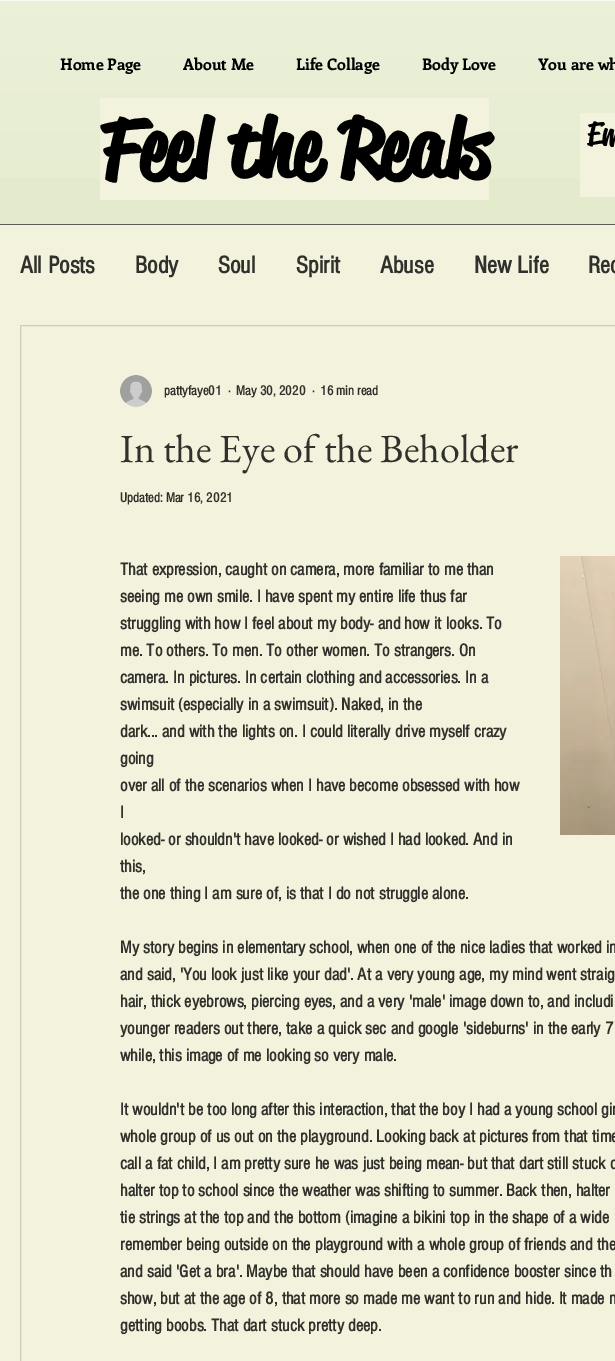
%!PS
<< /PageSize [615 1361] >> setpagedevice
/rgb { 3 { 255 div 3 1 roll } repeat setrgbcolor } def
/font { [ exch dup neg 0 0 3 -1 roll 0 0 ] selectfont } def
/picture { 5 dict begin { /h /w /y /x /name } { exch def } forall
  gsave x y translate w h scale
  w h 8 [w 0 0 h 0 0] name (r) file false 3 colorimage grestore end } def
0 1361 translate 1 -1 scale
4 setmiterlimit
228 235 204 rgb
0 0 615 1361 rectfill
(img/1.rgb) 0 1 615 177 picture
[
  [0 224 615 1 91 94 82]
  [0 0 615 1 247 249 240]
  [100 98 389 102 243 242 220]
  [580 113 35 84 243 242 220]
  [0 225 615 1136 243 242 220]
] { aload pop rgb rectfill } forall
206 206 187 rgb
20.5 325.5 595 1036 rectstroke
(img/2.rgb) 120 375 32 32 picture
(img/3.rgb) 560 556 55 279 picture
/Enriqueta-Bold 16 font
0 0 0 rgb
[
  [(Home Page) 60 70]
  [(About Me) 183 70]
  [(Life Collage) 296 70]
  [(Body Love) 422 70]
  [(You are wh) 538 70]
] { aload pop moveto show } forall
/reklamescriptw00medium-Bold 80 font
100 176 moveto (Feel the Reals) show
/reklamescriptw00medium-Medium 33 font
587 145 moveto (Em) show
/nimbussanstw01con-Bold 25 font
49 48 44 rgb
[
  [(All Posts) 20 273]
  [(Body) 135 273]
  [(Soul) 218 273]
  [(Spirit) 296 273]
  [(Abuse) 380 273]
  [(New Life) 474 273]
  [(Rec) 588 273]
] { aload pop moveto show } forall
/nimbussanstw01con-Bold 14 font
[
  [(pattyfaye01) 164 395]
  [(·) 228 395]
  [(May 30, 2020) 236 395]
  [(·) 312 395]
  [(16 min read) 320 395]
] { aload pop moveto show } forall
/EBGaramond-Regular 40 font
120 462 moveto (In the Eye of the Beholder) show
/nimbussanstw01con-Bold 14 font
120 502 moveto (Updated: Mar 16, 2021) show
/nimbussanstw01con-Bold 18 font
[
  [(That expression, caught on camera, more familiar to me than) 120 575]
  [(seeing me own smile. I have spent my entire life thus far) 120 602]
  [(struggling with how I feel about my body- and how it looks. To) 120 629]
  [(me. To others. To men. To other women. To strangers. On) 120 656]
  [(camera. In pictures. In certain clothing and accessories. In a) 120 683]
  [(swimsuit \(especially in a swimsuit\). Naked, in the) 120 710]
  [(dark... and with the lights on. I could literally drive myself crazy) 120 737]
  [(going) 120 764]
  [(over all of the scenarios when I have become obsessed with how) 120 791]
  [(I) 120 818]
  [(looked- or shouldn't have looked- or wished I had looked. And in) 120 845]
  [(this,) 120 872]
  [(the one thing I am sure of, is that I do not struggle alone.) 120 899]
  [(My story begins in elementary school, when one of the nice ladies that worked in) 120 953]
  [(and said, 'You look just like your dad'. At a very young age, my mind went straig) 120 980]
  [(hair, thick eyebrows, piercing eyes, and a very 'male' image down to, and includi) 120 1007]
  [(younger readers out there, take a quick sec and google 'sideburns' in the early 7) 120 1034]
  [(while, this image of me looking so very male.) 120 1061]
  [(It wouldn't be too long after this interaction, that the boy I had a young school gir) 120 1115]
  [(whole group of us out on the playground. Looking back at pictures from that time) 120 1142]
  [(call a fat child, I am pretty sure he was just being mean- but that dart still stuck d) 120 1169]
  [(halter top to school since the weather was shifting to summer. Back then, halter) 120 1196]
  [(tie strings at the top and the bottom \(imagine a bikini top in the shape of a wide) 120 1223]
  [(remember being outside on the playground with a whole group of friends and the) 120 1250]
  [(and said 'Get a bra'. Maybe that should have been a confidence booster since th) 120 1277]
  [(show, but at the age of 8, that more so made me want to run and hide. It made m) 120 1304]
  [(getting boobs. That dart stuck pretty deep.) 120 1331]
] { aload pop moveto show } forall
showpage
